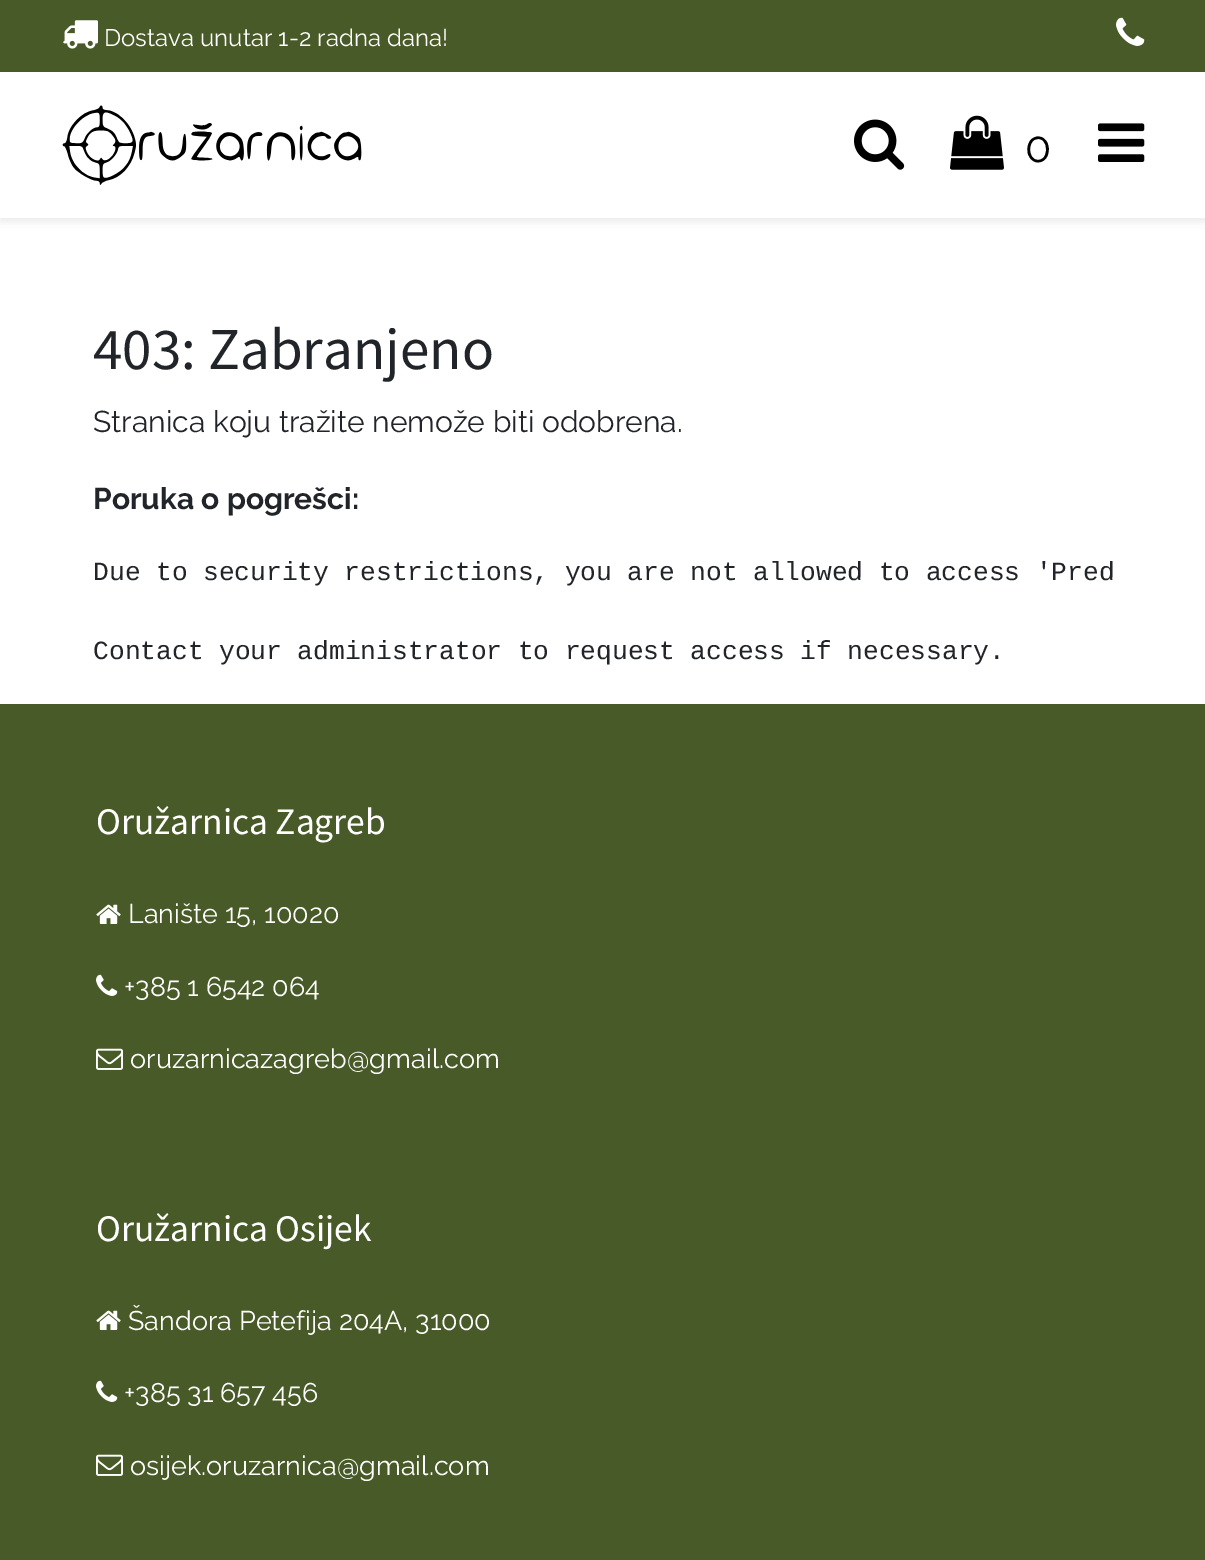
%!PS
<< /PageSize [1205 1560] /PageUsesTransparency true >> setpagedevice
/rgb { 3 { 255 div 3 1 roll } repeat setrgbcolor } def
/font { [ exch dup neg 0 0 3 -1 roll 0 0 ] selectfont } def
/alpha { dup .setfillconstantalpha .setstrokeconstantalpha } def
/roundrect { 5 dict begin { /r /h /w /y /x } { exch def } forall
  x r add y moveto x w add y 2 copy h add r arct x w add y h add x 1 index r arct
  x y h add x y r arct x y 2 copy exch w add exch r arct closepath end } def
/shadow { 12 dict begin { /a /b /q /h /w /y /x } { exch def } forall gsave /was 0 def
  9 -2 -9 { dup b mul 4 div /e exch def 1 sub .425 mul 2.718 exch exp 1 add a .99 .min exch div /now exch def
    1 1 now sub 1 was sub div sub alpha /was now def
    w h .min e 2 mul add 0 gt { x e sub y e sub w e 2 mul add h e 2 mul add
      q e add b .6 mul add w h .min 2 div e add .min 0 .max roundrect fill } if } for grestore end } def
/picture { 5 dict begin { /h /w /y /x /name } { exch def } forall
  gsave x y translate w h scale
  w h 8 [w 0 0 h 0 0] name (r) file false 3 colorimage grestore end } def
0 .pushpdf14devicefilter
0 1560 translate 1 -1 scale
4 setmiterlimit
255 255 255 rgb
0 0 1205 1560 rectfill
0 0 0 rgb
0 4 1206 218 0 4 0.07 shadow
255 255 255 rgb
0 72 1205 146 rectfill
72 90 39 rgb
0 0 1205 72 rectfill
(img/1.rgb) 63 20 35 29 picture
(img/2.rgb) 1116 17 29 29 picture
(img/3.rgb) 62 105 300 80 picture
(img/4.rgb) 854 119 51 51 picture
(img/5.rgb) 950 115 54 55 picture
(img/6.rgb) 1098 123 47 39 picture
0 704 1205 856 rectfill
(img/7.rgb) 96 904 25 20 picture
(img/8.rgb) 96 974 22 22 picture
(img/9.rgb) 96 1048 27 22 picture
(img/7.rgb) 96 1310 25 20 picture
(img/8.rgb) 96 1380 22 22 picture
(img/9.rgb) 96 1454 27 22 picture
/Raleway-Regular 24 font
255 255 255 rgb
104 46 moveto (Dostava unutar 1-2 radna dana!) show
/Raleway-Regular 43 font
0 0 0 rgb
1025 162 moveto (0) show
/SourceSansPro-Regular 59.25 font
33 37 41 rgb
93 369 moveto (403: Zabranjeno) show
/Raleway-Regular 30 font
93 432 moveto (Stranica koju tražite nemože biti odobrena.) show
/Raleway-Bold 30 font
93 509 moveto (Poruka o pogrešci:) show
/LiberationMono-Regular 26.25 font
93 580 moveto -0.25 0 32 (Due to security restrictions, you are not allowed to access 'Pred) widthshow
93 659 moveto -0.25 0 32 (Contact your administrator to request access if necessary.) widthshow
/SourceSansPro-Regular 37.5 font
255 255 255 rgb
96 834 moveto (Oružarnica Zagreb) show
/Raleway-Regular 27 font
[
  [(Lanište 15, 10020) 128 923]
  [(+385 1 6542 064) 124 996]
  [(oruzarnicazagreb@gmail.com) 130 1068]
] { aload pop moveto show } forall
/SourceSansPro-Regular 37.5 font
96 1241 moveto (Oružarnica Osijek) show
/Raleway-Regular 27 font
[
  [(Šandora Petefija 204A, 31000) 128 1330]
  [(+385 31 657 456) 124 1402]
  [(osijek.oruzarnica@gmail.com) 130 1475]
] { aload pop moveto show } forall
.poppdf14devicefilter showpage
